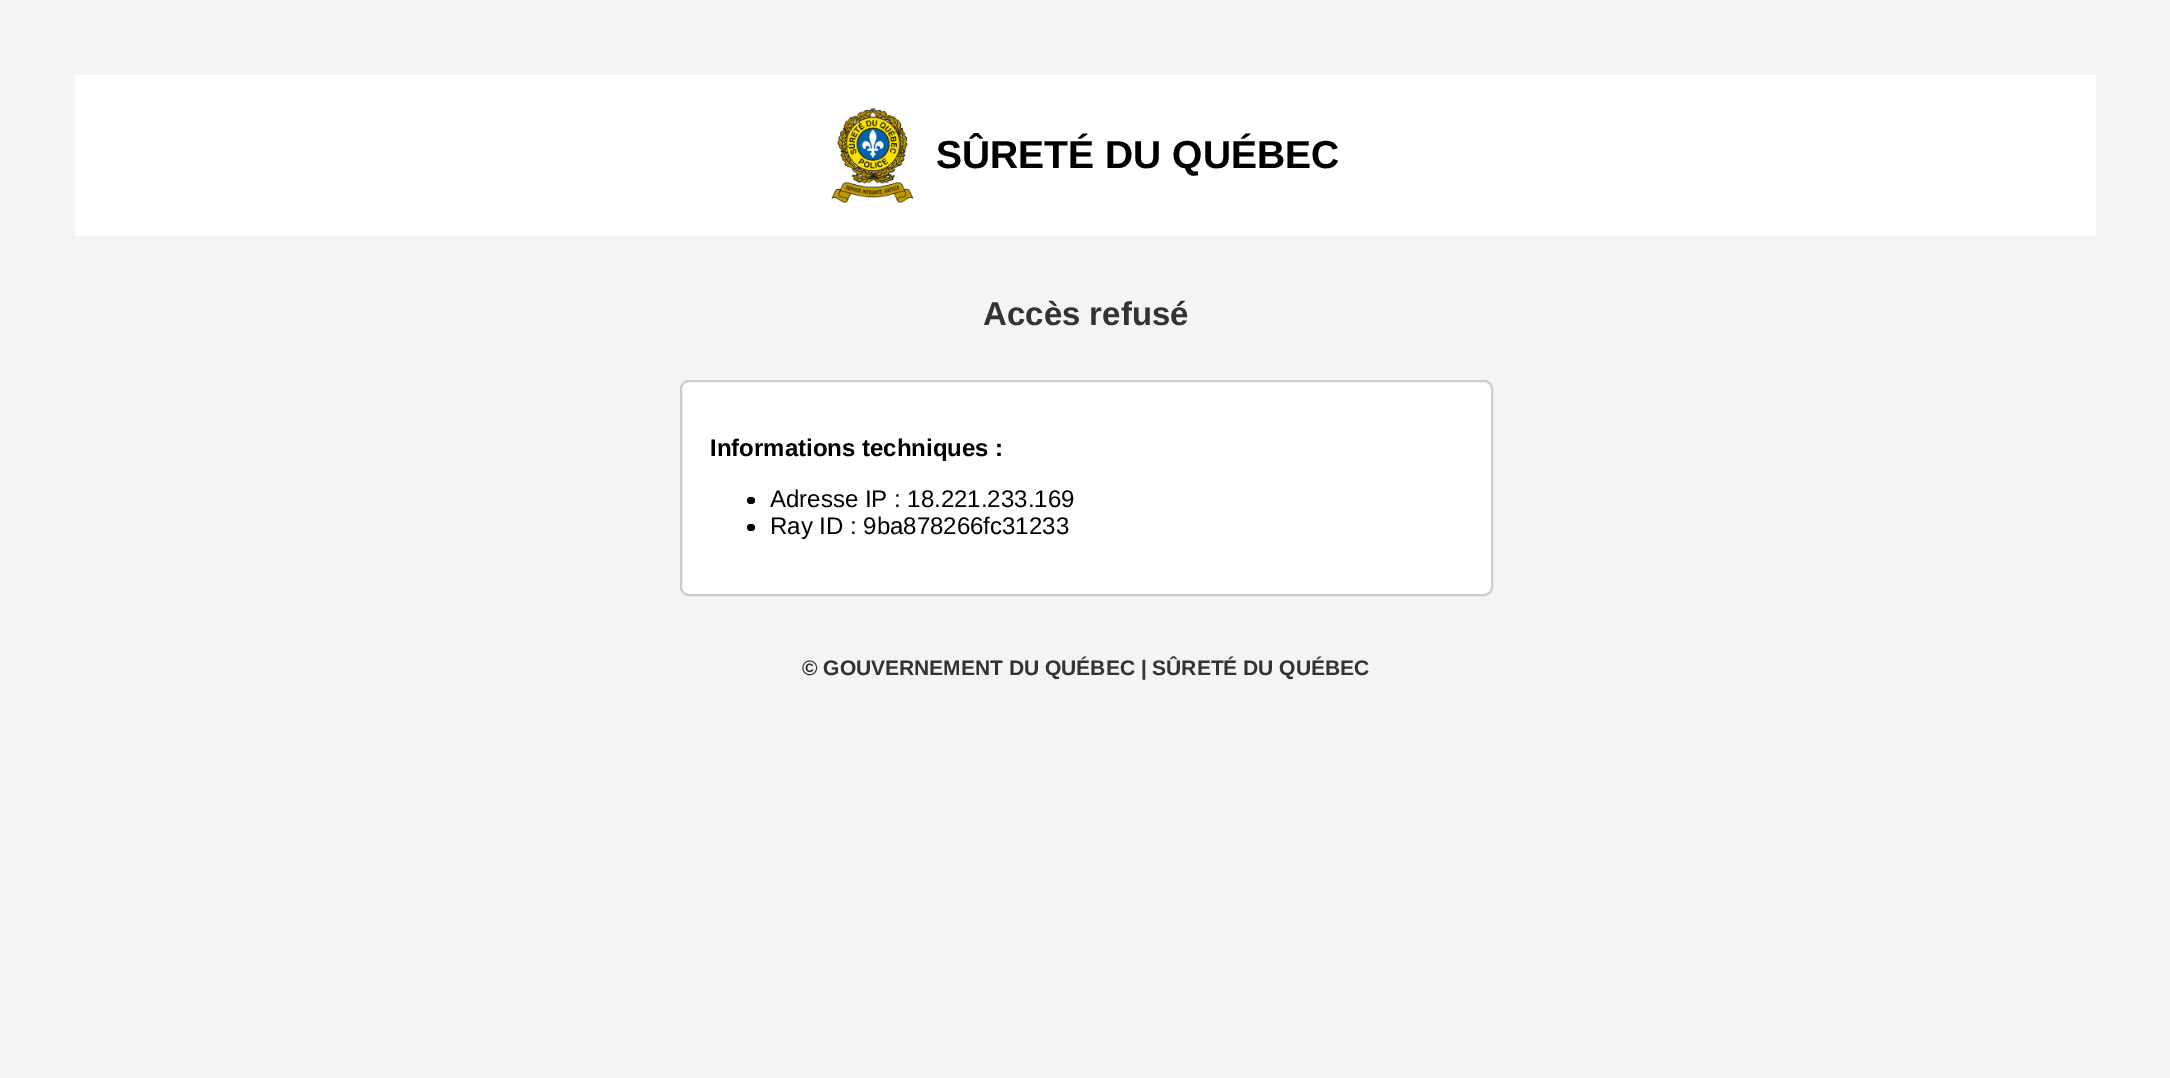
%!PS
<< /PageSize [2170 1078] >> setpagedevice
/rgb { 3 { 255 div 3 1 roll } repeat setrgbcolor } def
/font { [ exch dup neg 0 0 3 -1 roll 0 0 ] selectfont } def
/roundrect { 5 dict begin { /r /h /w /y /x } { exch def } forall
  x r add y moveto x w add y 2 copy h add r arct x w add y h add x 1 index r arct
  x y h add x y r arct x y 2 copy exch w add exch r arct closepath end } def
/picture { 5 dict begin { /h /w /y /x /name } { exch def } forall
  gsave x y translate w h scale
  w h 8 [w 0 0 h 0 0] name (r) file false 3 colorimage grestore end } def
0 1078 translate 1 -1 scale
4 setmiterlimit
244 244 244 rgb
0 0 2170 1078 rectfill
255 255 255 rgb
75 75 2021 161 rectfill
(img/1.rgb) 831 108 83 95 picture
681 381 811 214 8 roundrect gsave fill grestore
204 204 204 rgb
2 setlinewidth
stroke
0 0 0 rgb
747 497 8 7 3.5 roundrect fill
747 524 8 7 3.5 roundrect fill
/LiberationSans-Bold 39 font
936 168 moveto (SÛRETÉ DU QUÉBEC) show
/LiberationSans-Bold 33 font
51 51 51 rgb
983 325 moveto (Accès refusé) show
/LiberationSans-Bold 24 font
0 0 0 rgb
710 456 moveto (Informations techniques :) show
/LiberationSans-Regular 24 font
770 507 moveto (Adresse IP : 18.221.233.169) show
770 534 moveto (Ray ID : 9ba878266fc31233) show
/LiberationSans-Bold 21 font
51 51 51 rgb
802 675 moveto (© GOUVERNEMENT DU QUÉBEC | SÛRETÉ DU QUÉBEC) show
showpage
